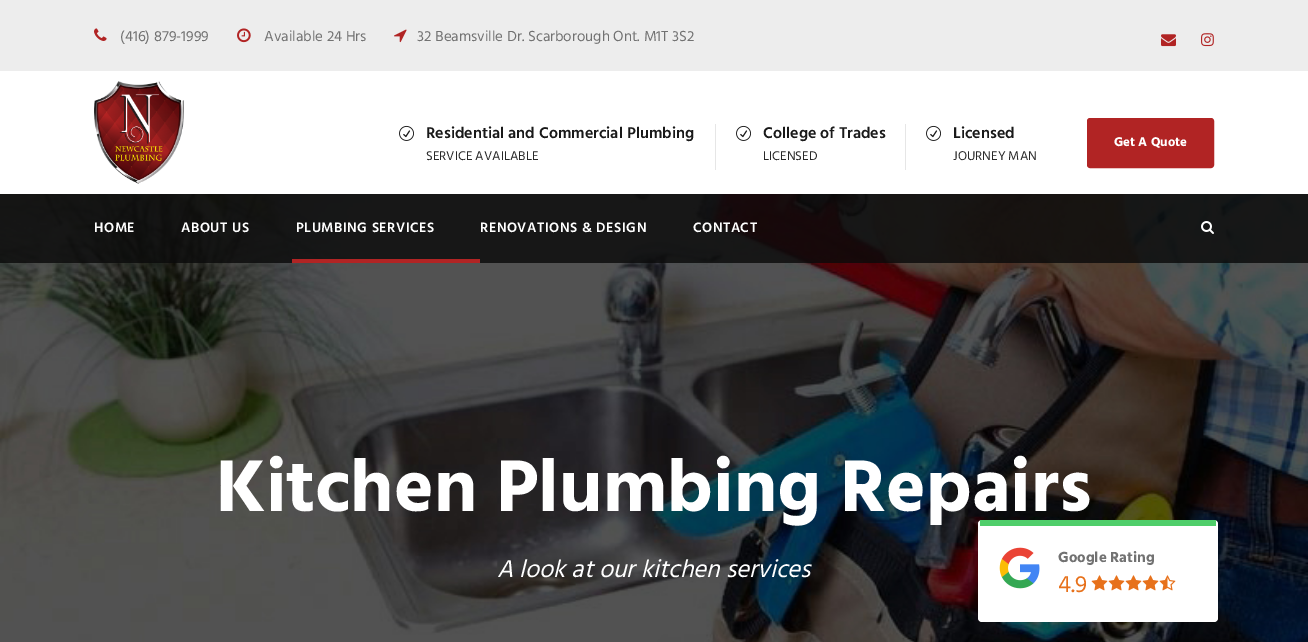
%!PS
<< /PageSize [1308 642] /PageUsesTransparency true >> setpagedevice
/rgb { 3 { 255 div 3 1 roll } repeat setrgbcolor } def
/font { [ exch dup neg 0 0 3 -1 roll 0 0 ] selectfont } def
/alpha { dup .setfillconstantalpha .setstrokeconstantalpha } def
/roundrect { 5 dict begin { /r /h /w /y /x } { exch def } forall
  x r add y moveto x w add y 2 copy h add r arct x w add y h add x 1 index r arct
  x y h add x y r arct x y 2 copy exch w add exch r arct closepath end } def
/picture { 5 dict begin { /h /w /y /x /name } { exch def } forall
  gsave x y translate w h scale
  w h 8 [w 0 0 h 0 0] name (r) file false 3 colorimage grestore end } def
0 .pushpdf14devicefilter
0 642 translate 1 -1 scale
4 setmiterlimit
255 255 255 rgb
0 0 1308 642 rectfill
237 237 237 rgb
0 0 1308 71 rectfill
(img/1.rgb) 94 28 13 13 picture
(img/2.rgb) 237 28 14 15 picture
(img/3.rgb) 394 29 13 14 picture
(img/4.rgb) 1161 34 15 13 picture
(img/5.rgb) 1201 33 13 14 picture
(img/6.rgb) 94 81 90 103 picture
(img/7.rgb) 399 125 15 16 picture
230 230 230 rgb
715 124 1 46 rectfill
(img/7.rgb) 736 125 15 16 picture
905 124 1 46 rectfill
(img/7.rgb) 926 125 15 16 picture
177 36 36 rgb
1088 119 125 48 2 roundrect gsave fill grestore
2 setlinewidth
stroke
(img/9.rgb) 0 194 1308 448 picture
0.82 alpha
10 10 10 rgb
0 194 1308 69 rectfill
1 alpha
177 36 36 rgb
292 259 188 4 rectfill
(img/8.rgb) 1201 221 13 13 picture
255 255 255 rgb
978 520 240 102 4 roundrect fill
(img/10.rgb) 999 547 41 42 picture
(img/11.rgb) 1091 575 17 16 picture
(img/11.rgb) 1108 575 17 16 picture
(img/11.rgb) 1125 575 17 16 picture
(img/11.rgb) 1142 575 17 16 picture
(img/12.rgb) 1159 575 17 16 picture
/Hind-Regular 15 font
114 114 114 rgb
[
  [(\(416\) 879-1999) 120 41]
  [(Available 24 Hrs) 264 41]
  [(32 Beamsville Dr. Scarborough Ont. M1T 3S2) 417 41]
] { aload pop moveto show } forall
/Hind-SemiBold 16 font
25 25 25 rgb
426 138 moveto (Residential and Commercial Plumbing) show
/Hind-Regular 13 font
40 40 40 rgb
426 160 moveto (SERVICE AVAILABLE) show
/Hind-SemiBold 16 font
25 25 25 rgb
763 138 moveto (College of Trades) show
/Hind-Regular 13 font
40 40 40 rgb
763 160 moveto (LICENSED) show
/Hind-SemiBold 16 font
25 25 25 rgb
953 138 moveto (Licensed) show
/Hind-Regular 13 font
40 40 40 rgb
953 160 moveto (JOURNEY MAN) show
/Hind-Bold 13 font
255 255 255 rgb
1114 146 moveto (Get A Quote) show
/Hind-SemiBold 14 font
94 232 moveto 0.5 0 (HOME) ashow
181 232 moveto 0.5 0 (ABOUT US) ashow
296 232 moveto 0.5 0 (PLUMBING SERVICES) ashow
480 232 moveto 0.5 0 (RENOVATIONS & DESIGN) ashow
693 232 moveto 0.5 0 (CONTACT) ashow
/Hind-Bold 75 font
216 511 moveto (Kitchen Plumbing Repairs) show
/Hind-Italic 25 font
497 577 moveto (A look at our kitchen services) show
79 206 106 rgb
980 520 236 6 rectfill
/Hind-Bold 15 font
114 114 114 rgb
1058 562 moveto (Google Rating) show
/Hind-Regular 24 font
231 113 27 rgb
1058 592 moveto (4.9) show
.poppdf14devicefilter showpage
